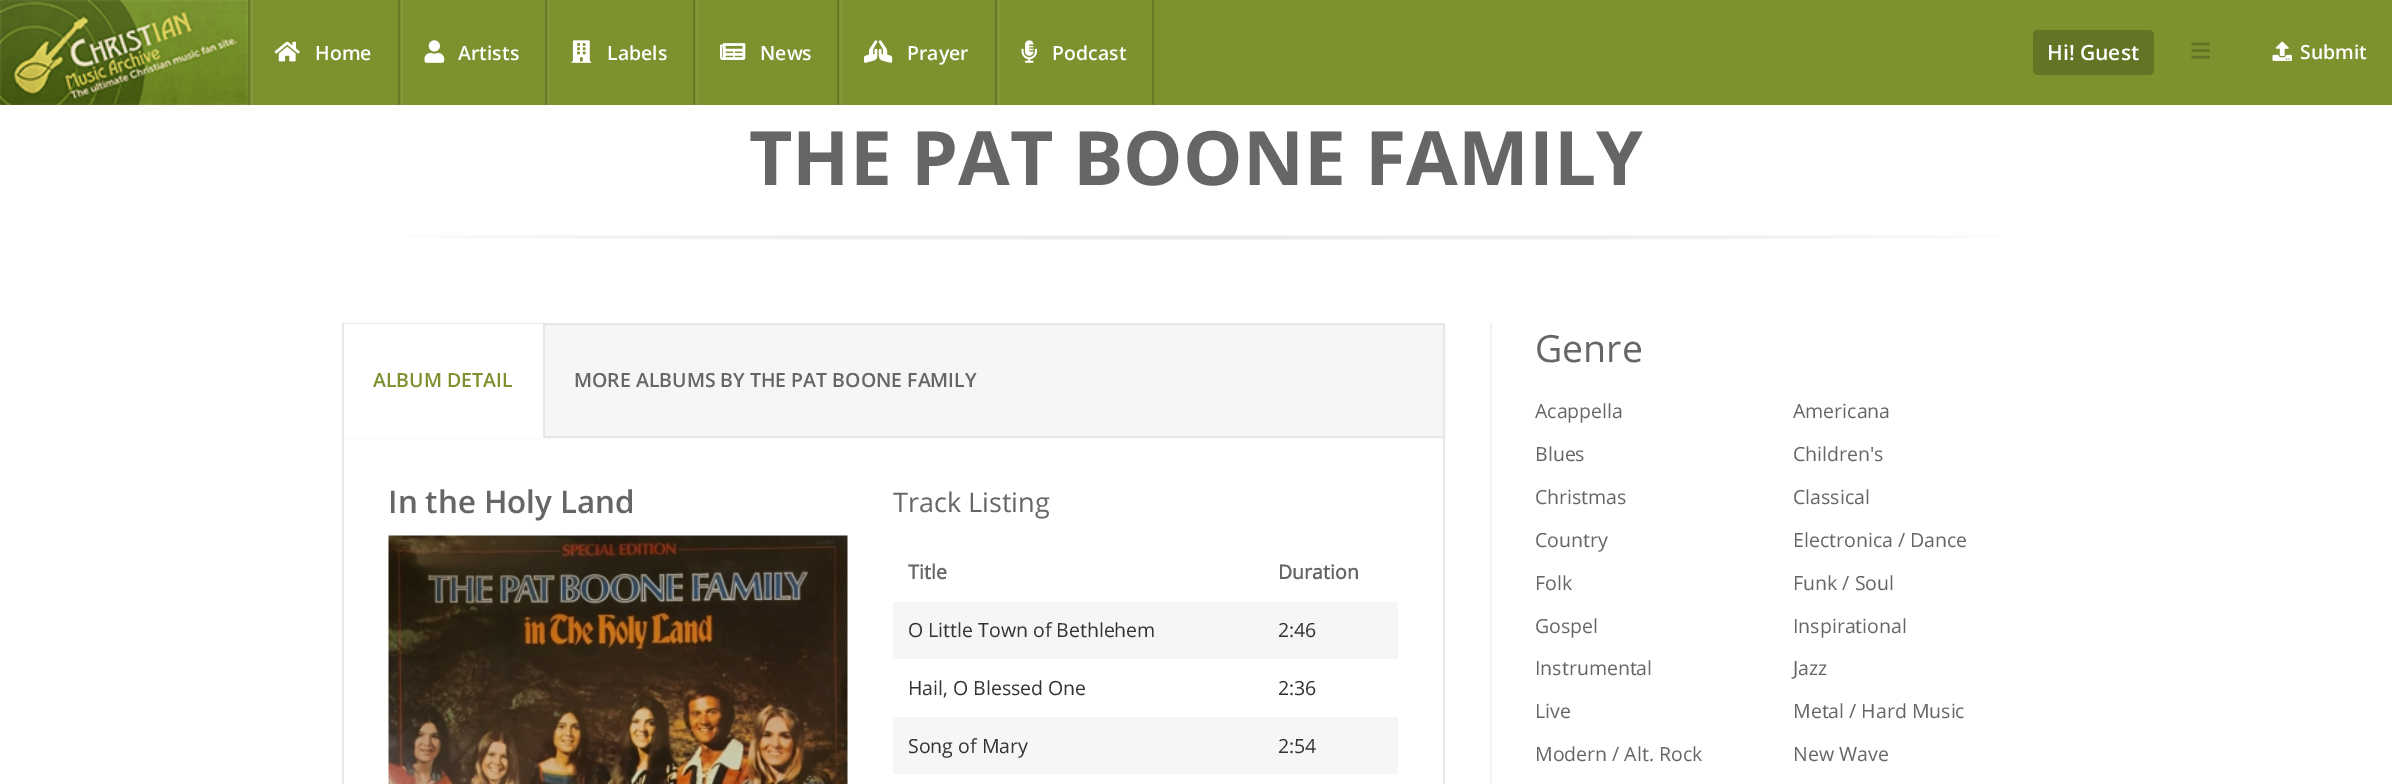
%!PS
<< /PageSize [2392 784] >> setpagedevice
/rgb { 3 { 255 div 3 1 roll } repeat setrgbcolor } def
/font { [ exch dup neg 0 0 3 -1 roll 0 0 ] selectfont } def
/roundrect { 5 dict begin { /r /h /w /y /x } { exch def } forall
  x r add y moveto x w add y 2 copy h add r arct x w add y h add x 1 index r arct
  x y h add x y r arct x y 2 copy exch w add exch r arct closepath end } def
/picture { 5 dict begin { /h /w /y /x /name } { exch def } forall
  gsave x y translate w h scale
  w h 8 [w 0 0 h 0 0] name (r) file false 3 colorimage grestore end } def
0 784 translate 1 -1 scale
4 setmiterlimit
255 255 255 rgb
0 0 2392 784 rectfill
125 145 46 rgb
250 0 2142 105 rectfill
(img/1.rgb) 0 0 248 105 picture
106 123 39 rgb
248 0 2 105 rectfill
133 152 59 rgb
251 0 2 105 rectfill
(img/2.rgb) 274 41 26 21 picture
106 123 39 rgb
398 0 2 105 rectfill
133 152 59 rgb
401 0 2 105 rectfill
(img/3.rgb) 424 40 21 23 picture
106 123 39 rgb
545 0 2 105 rectfill
133 152 59 rgb
548 0 2 105 rectfill
(img/4.rgb) 571 40 21 23 picture
106 123 39 rgb
693 0 2 105 rectfill
133 152 59 rgb
696 0 2 105 rectfill
(img/5.rgb) 720 43 26 17 picture
106 123 39 rgb
837 0 2 105 rectfill
133 152 59 rgb
840 0 2 105 rectfill
(img/6.rgb) 864 40 29 23 picture
[
  [1152 0 2 105 106 123 39]
  [995 0 2 105 106 123 39]
  [998 0 2 105 133 152 59]
] { aload pop rgb rectfill } forall
(img/7.rgb) 1021 40 16 23 picture
99 116 36 rgb
2033 30 121 45 5 roundrect fill
(img/8.rgb) 2191 42 19 17 picture
(img/9.rgb) 2272 41 20 20 picture
(img/10.rgb) 411 235 1587 5 picture
246 246 246 rgb
545 325 898 111 rectfill
231 231 231 rgb
2 setlinewidth
343 324 1101 113 rectstroke
[
  [344 324 199 114 255 255 255]
  [543 324 2 114 231 231 231]
  [1443 438 2 346 231 231 231]
  [342 438 2 346 231 231 231]
] { aload pop rgb rectfill } forall
(img/11.rgb) 388 535 460 249 picture
[
  [893 602 505 57 246 246 246]
  [893 717 505 57 246 246 246]
  [1490 323 2 461 242 242 242]
] { aload pop rgb rectfill } forall
/OpenSans-SemiBold 19.5 font
255 255 255 rgb
[
  [(Home) 315 60]
  [(Artists) 458 60]
  [(Labels) 607 60]
  [(News) 760 60]
  [(Prayer) 907 60]
  [(Podcast) 1052 60]
] { aload pop moveto show } forall
/OpenSans-SemiBold 21 font
2047 60 moveto (Hi! Guest) show
/OpenSans-SemiBold 19.5 font
2300 59 moveto (Submit) show
/OpenSans-Bold 75 font
102 102 102 rgb
749 185 moveto (THE PAT BOONE FAMILY) show
/OpenSans-SemiBold 19.5 font
125 145 46 rgb
373 387 moveto (ALBUM DETAIL) show
102 102 102 rgb
574 387 moveto (MORE ALBUMS BY THE PAT BOONE FAMILY) show
/OpenSans-SemiBold 31.25 font
388 513 moveto (In the Holy Land) show
/OpenSans-Regular 27 font
893 512 moveto (Track Listing) show
/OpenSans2-Bold 19.5 font
908 579 moveto (Title) show
1278 579 moveto (Duration) show
/OpenSans-Regular 19.5 font
51 51 51 rgb
[
  [(O Little Town of Bethlehem) 908 637]
  [(2:46) 1278 637]
  [(Hail, O Blessed One) 908 695]
  [(2:36) 1278 695]
  [(Song of Mary) 908 753]
  [(2:54) 1278 753]
] { aload pop moveto show } forall
/OpenSans-Regular 37.5 font
102 102 102 rgb
1535 362 moveto (Genre) show
/OpenSans-Regular 19.5 font
[
  [(Acappella) 1535 418]
  [(Americana) 1793 418]
  [(Blues) 1535 461]
  [(Children's) 1793 461]
  [(Christmas) 1535 504]
  [(Classical) 1793 504]
  [(Country) 1535 547]
  [(Electronica / Dance) 1793 547]
  [(Folk) 1535 590]
  [(Funk / Soul) 1793 590]
  [(Gospel) 1535 633]
  [(Inspirational) 1793 633]
  [(Instrumental) 1535 675]
  [(Jazz) 1793 675]
  [(Live) 1535 718]
  [(Metal / Hard Music) 1793 718]
  [(Modern / Alt. Rock) 1535 761]
  [(New Wave) 1793 761]
] { aload pop moveto show } forall
showpage
